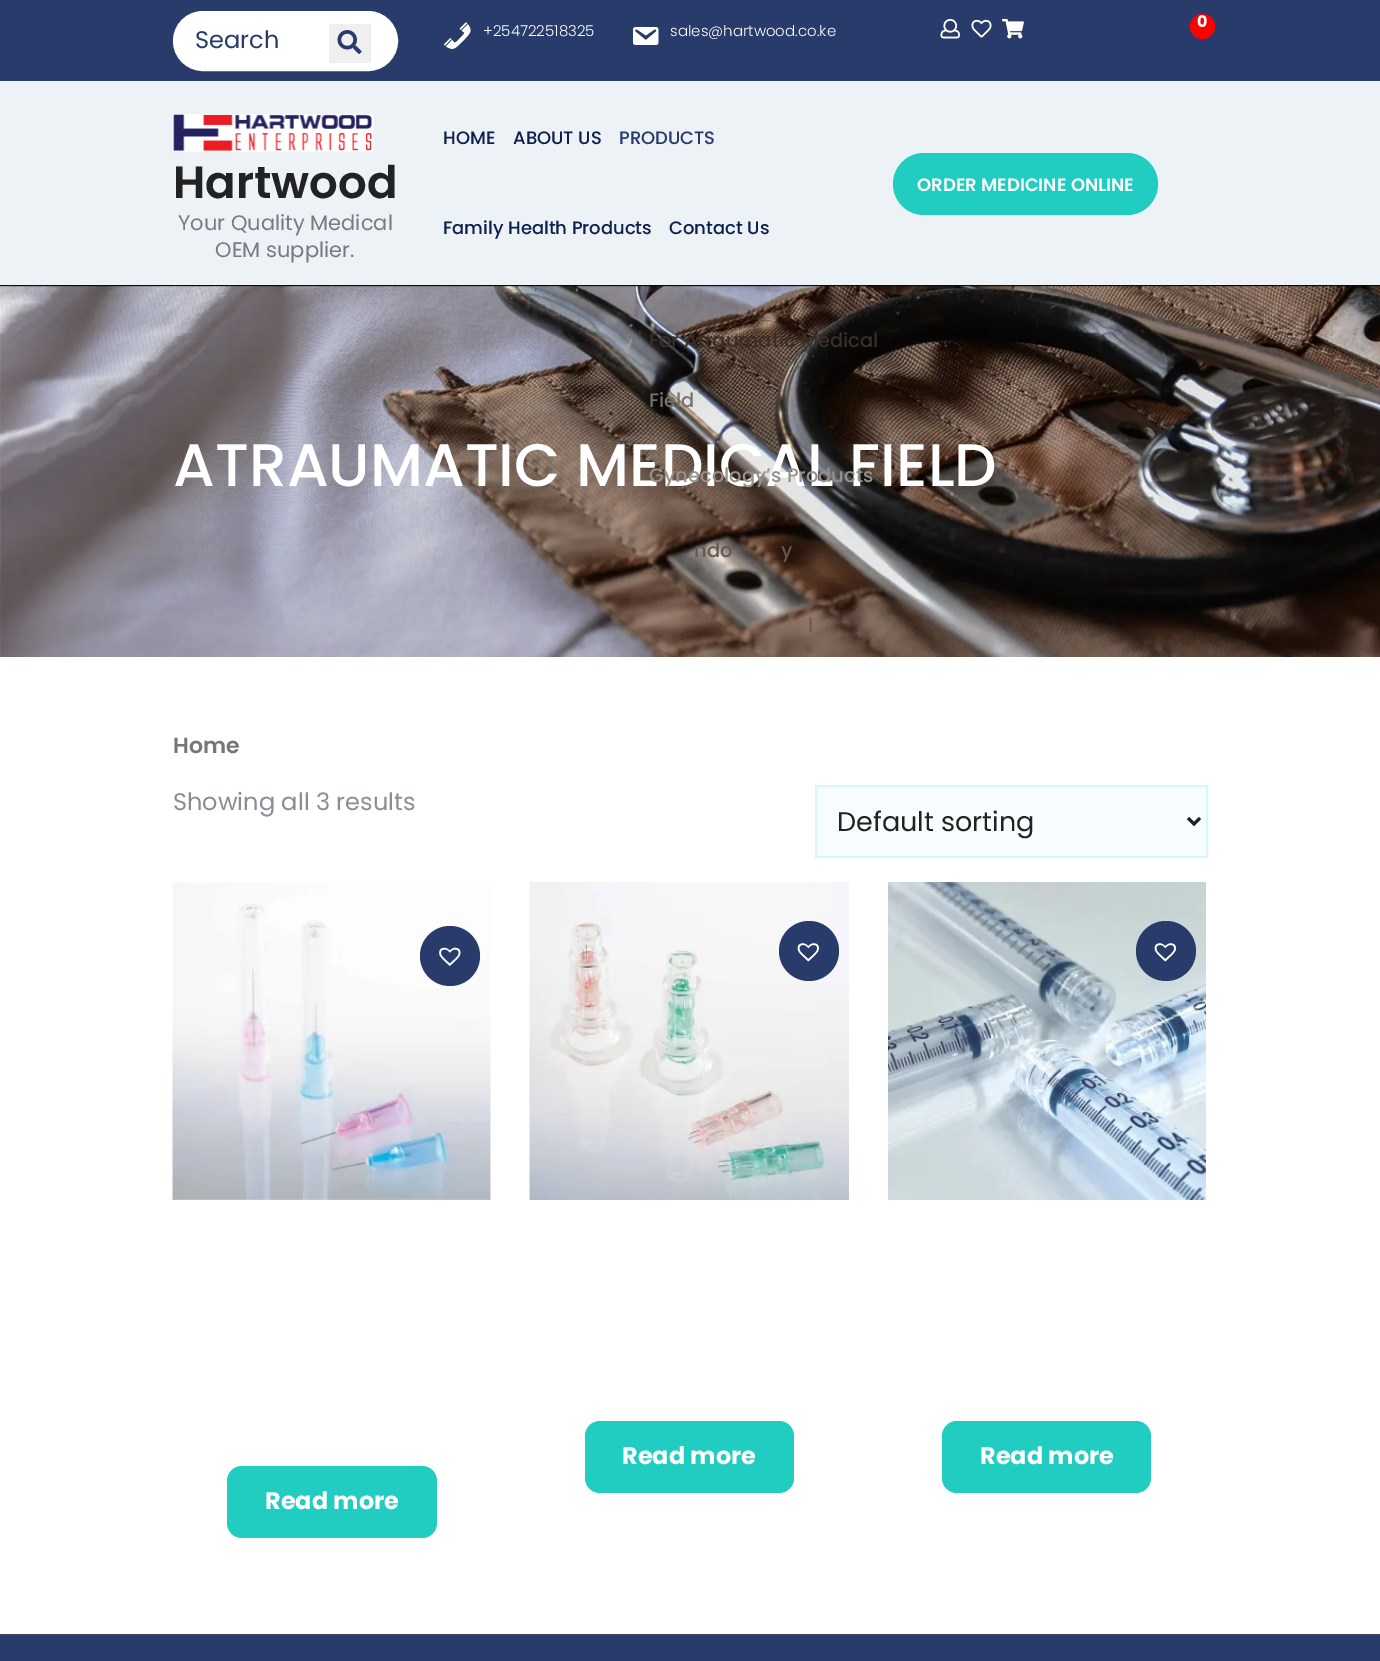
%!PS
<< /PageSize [1380 1661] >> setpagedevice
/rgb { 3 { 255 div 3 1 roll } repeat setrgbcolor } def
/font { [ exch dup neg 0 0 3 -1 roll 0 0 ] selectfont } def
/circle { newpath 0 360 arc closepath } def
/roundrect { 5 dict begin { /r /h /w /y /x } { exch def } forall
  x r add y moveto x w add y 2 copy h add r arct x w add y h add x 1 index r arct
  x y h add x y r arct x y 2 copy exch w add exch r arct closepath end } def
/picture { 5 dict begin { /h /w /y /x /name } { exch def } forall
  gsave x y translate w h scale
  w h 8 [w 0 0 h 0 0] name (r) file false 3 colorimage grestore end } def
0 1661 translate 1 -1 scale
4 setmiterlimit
255 255 255 rgb
0 0 1380 1661 rectfill
40 59 106 rgb
0 0 1380 81 rectfill
255 255 255 rgb
174 12 223 58 29 roundrect gsave fill grestore
2 setlinewidth
stroke
239 239 239 rgb
329 24 42 39 rectfill
(img/1.rgb) 337 30 25 24 picture
(img/2.rgb) 940 18 20 21 picture
(img/3.rgb) 971 19 21 19 picture
(img/4.rgb) 1002 18 22 21 picture
255 0 0 rgb
1202.5 26.5 12.5 circle fill
(img/5.rgb) 444 22 27 27 picture
(img/6.rgb) 633 27 26 18 picture
237 242 246 rgb
0 81 1380 204 rectfill
(img/7.rgb) 172 114 202 38 picture
33 205 192 rgb
893 153 265 62 31 roundrect fill
(img/8.rgb) 0 285 1380 372 picture
247 253 254 rgb
816 786 moveto 1207 786 lineto 1207 857 lineto 816 857 lineto closepath gsave fill grestore
215 245 250 rgb
stroke
34 34 34 rgb
3 setlinewidth
1188 818 moveto 1194 824 lineto 1200 818 lineto stroke
(img/9.rgb) 529 882 320 318 picture
40 59 106 rgb
809 951 30 circle fill
(img/10.rgb) 797 943 22 19 picture
33 205 192 rgb
585 1421 209 72 15 roundrect fill
(img/11.rgb) 888 882 318 318 picture
40 59 106 rgb
1166 951 30 circle fill
(img/10.rgb) 1154 943 22 19 picture
33 205 192 rgb
942 1421 209 72 15 roundrect fill
(img/12.rgb) 172 882 319 318 picture
40 59 106 rgb
450 956 30 circle fill
(img/13.rgb) 439 947 22 19 picture
33 205 192 rgb
227 1466 210 72 15 roundrect fill
40 59 106 rgb
0 1636 1380 25 rectfill
66 67 87 rgb
0 1634 1380 2 rectfill
/Poppins-Regular 24 font
40 59 106 rgb
195 48 moveto (Search) show
/Poppins-Bold 16 font
255 255 255 rgb
1197 27 moveto (0) show
/Poppins-Light 15 font
483 36 moveto (+254722518325) show
670 36 moveto (sales@hartwood.co.ke) show
/Poppins-SemiBold 45 font
34 34 34 rgb
173 198 moveto (Hartwood) show
/Poppins-Regular 21 font
118 124 131 rgb
178 230 moveto (Your Quality Medical) show
215 257 moveto (OEM supplier.) show
/Poppins-Medium 18 font
14 32 77 rgb
443 144 moveto (HOME) show
513 144 moveto (ABOUT US) show
40 59 106 rgb
619 144 moveto (PRODUCTS) show
/Poppins-Medium 19.5 font
57 46 40 rgb
649 347 moveto (For Atraumatic Medical) show
117 113 109 rgb
649 407 moveto (Field) show
103 87 78 rgb
694 557 moveto (ndo) show
781 557 moveto (y) show
114 91 77 rgb
808 632 moveto (l) show
/Poppins-Medium 18 font
14 32 77 rgb
443 234 moveto (Family Health Products) show
669 234 moveto (Contact Us) show
/Poppins-SemiBold 18 font
255 255 255 rgb
917 191 moveto (ORDER MEDICINE ONLINE) show
/Poppins-Medium 60 font
173 486 moveto (ATRAUMATIC MEDICAL FIELD) show
/Poppins-Medium 19.5 font
150 144 140 rgb
649 482 moveto (Gynecology’s Products) show
/Poppins-SemiBold 22 font
118 118 118 rgb
173 753 moveto (Home) show
/Poppins-Regular 24 font
137 141 148 rgb
173 810 moveto (Showing all 3 results) show
/Poppins-Regular 27 font
34 34 34 rgb
837 831 moveto (Default sorting) show
/Poppins-Bold 24 font
255 255 255 rgb
[
  [(Read more) 622 1464]
  [(Read more) 980 1464]
  [(Read more) 265 1509]
] { aload pop moveto show } forall
showpage
